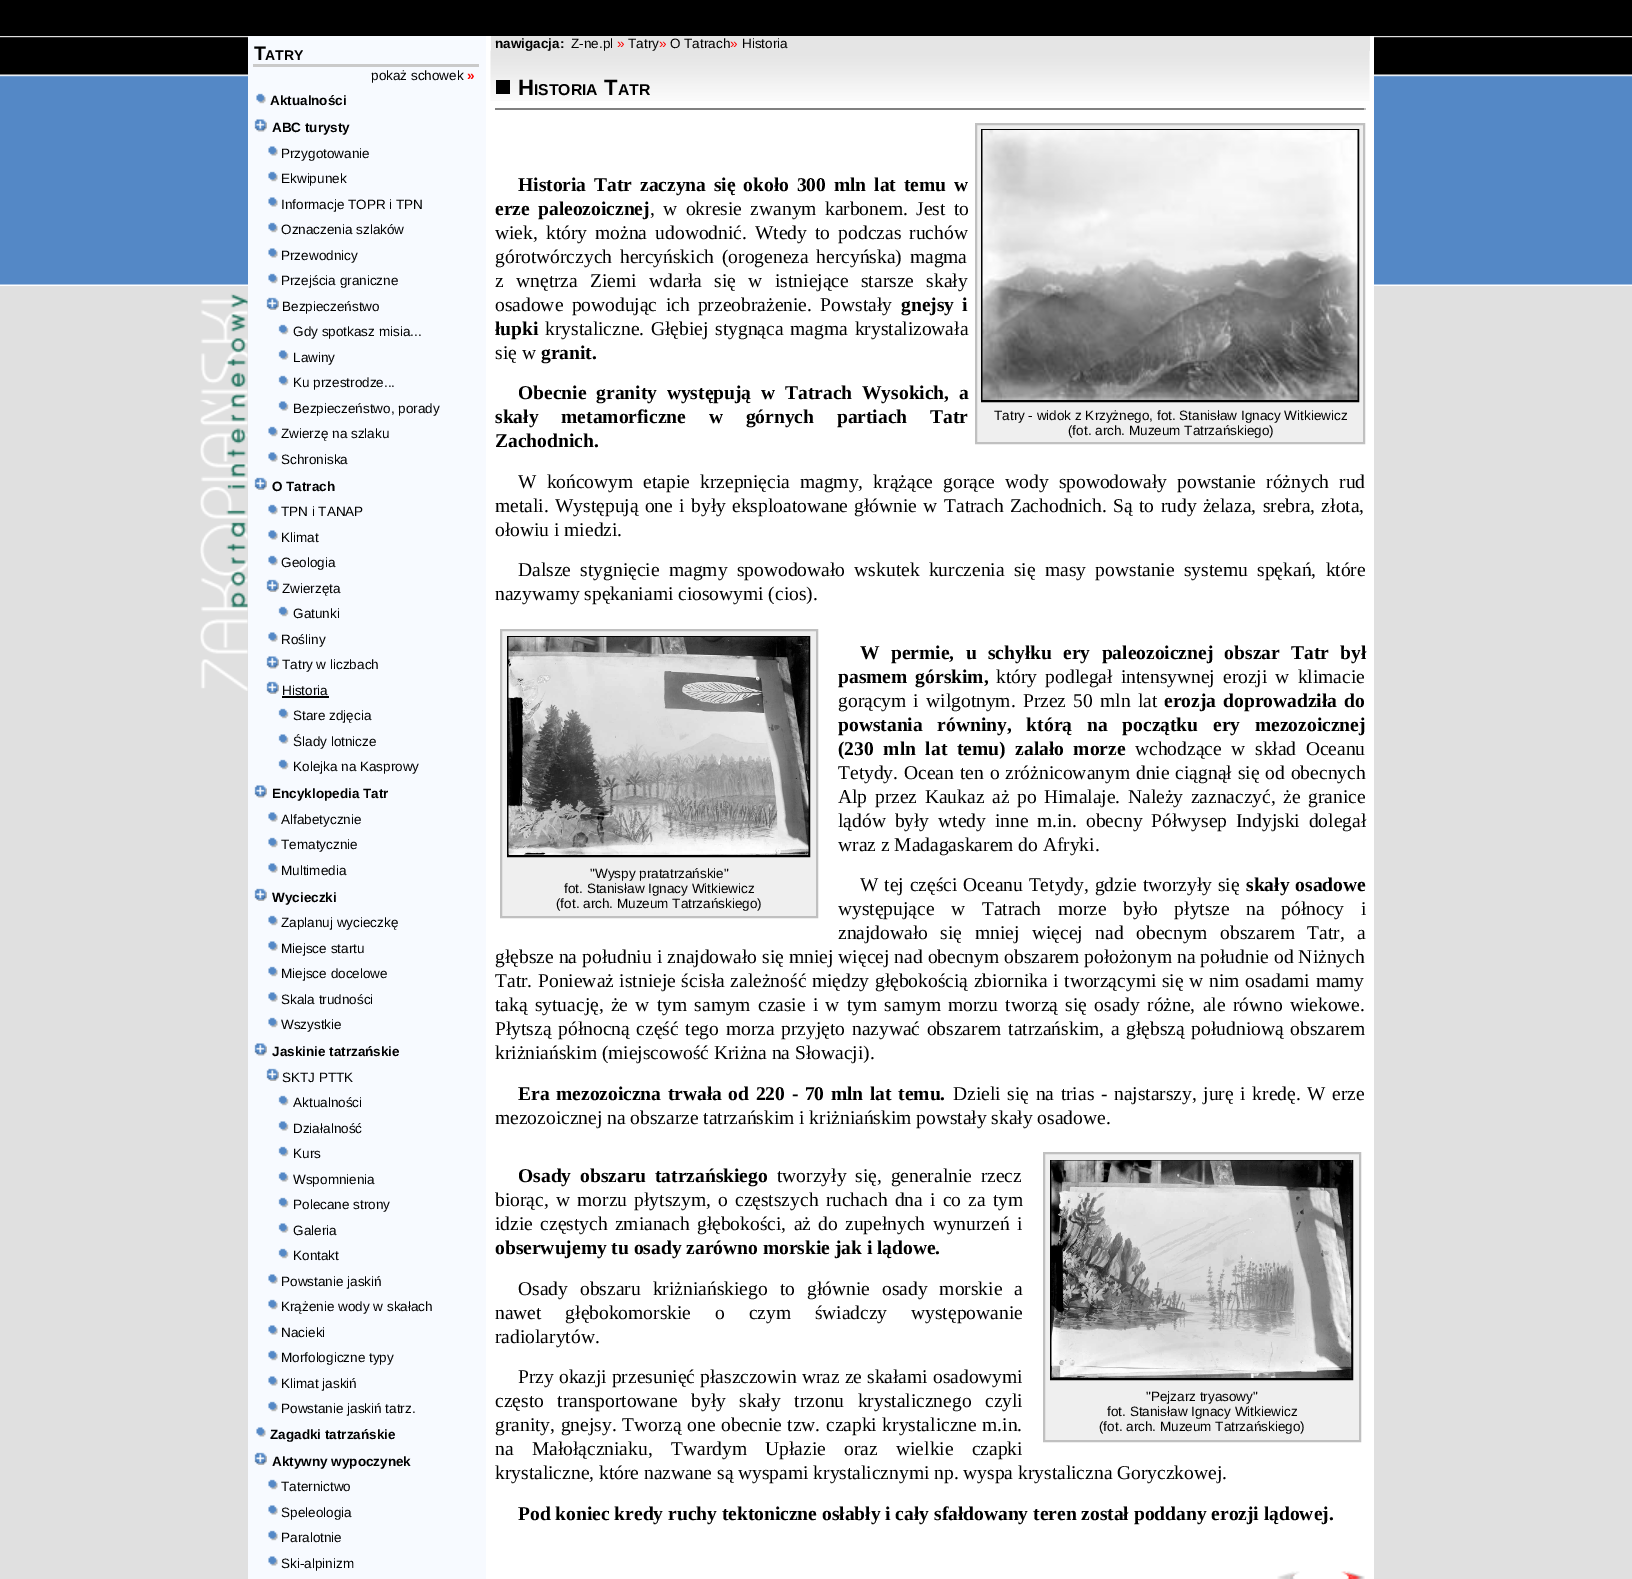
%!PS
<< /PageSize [1632 1579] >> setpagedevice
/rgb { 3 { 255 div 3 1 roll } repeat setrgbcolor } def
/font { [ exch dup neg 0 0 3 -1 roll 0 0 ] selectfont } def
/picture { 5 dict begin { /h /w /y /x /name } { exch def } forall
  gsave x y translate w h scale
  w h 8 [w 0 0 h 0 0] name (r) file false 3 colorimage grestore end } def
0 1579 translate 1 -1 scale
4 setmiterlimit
224 224 224 rgb
0 0 1632 1579 rectfill
0 0 0 rgb
0 0 1632 36 rectfill
(img/1.rgb) 0 36 1632 250 picture
(img/2.rgb) 200 293 48 398 picture
247 250 255 rgb
248 36 238 1543 rectfill
202 202 202 rgb
253 64 226 3 rectfill
(img/3.rgb) 256 93 10 11 picture
(img/4.rgb) 254 119 13 13 picture
(img/5.rgb) 268 146 10 10 picture
(img/3.rgb) 268 171 10 11 picture
(img/5.rgb) 268 197 10 10 picture
(img/3.rgb) 268 222 10 11 picture
(img/5.rgb) 268 248 10 10 picture
(img/3.rgb) 268 273 10 11 picture
(img/6.rgb) 266 297 13 13 picture
(img/7.rgb) 278 324 11 11 picture
(img/8.rgb) 278 350 11 10 picture
(img/7.rgb) 278 375 11 11 picture
(img/8.rgb) 278 401 11 10 picture
(img/3.rgb) 268 426 10 11 picture
(img/5.rgb) 268 452 10 10 picture
(img/6.rgb) 254 477 13 13 picture
(img/3.rgb) 268 504 10 11 picture
(img/5.rgb) 268 530 10 10 picture
(img/3.rgb) 268 555 10 11 picture
(img/6.rgb) 266 579 13 13 picture
(img/7.rgb) 278 606 11 11 picture
(img/5.rgb) 268 632 10 10 picture
(img/4.rgb) 266 656 13 13 picture
(img/6.rgb) 266 681 13 13 picture
0 0 0 rgb
282 696 47 2 rectfill
(img/7.rgb) 278 708 11 11 picture
(img/8.rgb) 278 734 11 10 picture
(img/7.rgb) 278 759 11 11 picture
(img/4.rgb) 254 785 13 13 picture
(img/5.rgb) 268 812 10 10 picture
(img/3.rgb) 268 837 10 11 picture
(img/5.rgb) 268 863 10 10 picture
(img/6.rgb) 254 888 13 13 picture
(img/3.rgb) 268 915 10 11 picture
(img/5.rgb) 268 941 10 10 picture
(img/3.rgb) 268 966 10 11 picture
(img/5.rgb) 268 992 10 10 picture
(img/3.rgb) 268 1017 10 11 picture
(img/4.rgb) 254 1043 13 13 picture
(img/6.rgb) 266 1068 13 13 picture
(img/7.rgb) 278 1095 11 11 picture
(img/8.rgb) 278 1121 11 10 picture
(img/7.rgb) 278 1146 11 11 picture
(img/8.rgb) 278 1172 11 10 picture
(img/7.rgb) 278 1197 11 11 picture
(img/8.rgb) 278 1223 11 10 picture
(img/7.rgb) 278 1248 11 11 picture
(img/5.rgb) 268 1274 10 10 picture
(img/3.rgb) 268 1299 10 11 picture
(img/5.rgb) 268 1325 10 10 picture
(img/3.rgb) 268 1350 10 11 picture
(img/5.rgb) 268 1376 10 10 picture
(img/3.rgb) 268 1401 10 11 picture
(img/5.rgb) 256 1427 10 10 picture
(img/6.rgb) 254 1452 13 13 picture
(img/3.rgb) 268 1479 10 11 picture
(img/5.rgb) 268 1505 10 10 picture
(img/3.rgb) 268 1530 10 11 picture
(img/5.rgb) 268 1556 10 10 picture
255 255 255 rgb
486 36 888 1543 rectfill
229 229 229 rgb
491 36 879 15 rectfill
(img/9.rgb) 490 50 880 51 picture
[
  [496 80 14 14 0 0 0]
  [495 108 870 2 128 128 128]
  [1364 108 2 2 192 192 192]
] { aload pop rgb rectfill } forall
239 239 239 rgb
501 630 moveto 817 630 lineto 817 917 lineto 501 917 lineto closepath gsave fill grestore
192 192 192 rgb
2 setlinewidth
stroke
0 0 0 rgb
508 637 301 219 rectstroke
(img/10.rgb) 508 637 301 218 picture
239 239 239 rgb
1044 1153 moveto 1360 1153 lineto 1360 1441 lineto 1044 1441 lineto closepath gsave fill grestore
192 192 192 rgb
stroke
0 0 0 rgb
1051 1161 301 218 rectstroke
(img/11.rgb) 1051 1160 301 218 picture
239 239 239 rgb
976 124 moveto 1364 124 lineto 1364 443 lineto 976 443 lineto closepath gsave fill grestore
192 192 192 rgb
stroke
0 0 0 rgb
982 130 376 271 rectstroke
(img/12.rgb) 982 130 376 270 picture
(img/13.rgb) 1277 1571 23 8 picture
(img/14.rgb) 1341 1571 24 8 picture
/LiberationSans-Bold 19.5 font
254 60 moveto (T) show
/LiberationSans-Bold 14 font
265 60 moveto (ATRY) show
/LiberationSans-Regular 13.5 font
371 80 moveto (pokaż schowek) show
/LiberationSans-Bold 13.5 font
255 0 0 rgb
467 80 moveto (») show
0 0 0 rgb
270 105 moveto (Aktualności) show
272 132 moveto (ABC turysty) show
/LiberationSans-Regular 13.5 font
[
  [(Przygotowanie) 281 158]
  [(Ekwipunek) 281 183]
  [(Informacje TOPR i TPN) 281 209]
  [(Oznaczenia szlaków) 281 234]
  [(Przewodnicy) 281 260]
  [(Przejścia graniczne) 281 285]
  [(Bezpieczeństwo) 282 311]
  [(Gdy spotkasz misia...) 293 336]
  [(Lawiny) 293 362]
  [(Ku przestrodze...) 293 387]
  [(Bezpieczeństwo, porady) 293 413]
  [(Zwierzę na szlaku) 281 438]
  [(Schroniska) 281 464]
] { aload pop moveto show } forall
/LiberationSans-Bold 13.5 font
272 491 moveto (O Tatrach) show
/LiberationSans-Regular 13.5 font
[
  [(TPN i TANAP) 281 516]
  [(Klimat) 281 542]
  [(Geologia) 281 567]
  [(Zwierzęta) 282 593]
  [(Gatunki) 293 618]
  [(Rośliny) 281 644]
  [(Tatry w liczbach) 282 669]
  [(Historia) 282 695]
  [(Stare zdjęcia) 293 720]
  [(Ślady lotnicze) 293 746]
  [(Kolejka na Kasprowy) 293 771]
] { aload pop moveto show } forall
/LiberationSans-Bold 13.5 font
272 798 moveto (Encyklopedia Tatr) show
/LiberationSans-Regular 13.5 font
[
  [(Alfabetycznie) 281 824]
  [(Tematycznie) 281 849]
  [(Multimedia) 281 875]
] { aload pop moveto show } forall
/LiberationSans-Bold 13.5 font
272 902 moveto (Wycieczki) show
/LiberationSans-Regular 13.5 font
[
  [(Zaplanuj wycieczkę) 281 927]
  [(Miejsce startu) 281 953]
  [(Miejsce docelowe) 281 978]
  [(Skala trudności) 281 1004]
  [(Wszystkie) 281 1029]
] { aload pop moveto show } forall
/LiberationSans-Bold 13.5 font
272 1056 moveto (Jaskinie tatrzańskie) show
/LiberationSans-Regular 13.5 font
[
  [(SKTJ PTTK) 282 1082]
  [(Aktualności) 293 1107]
  [(Działalność) 293 1133]
  [(Kurs) 293 1158]
  [(Wspomnienia) 293 1184]
  [(Polecane strony) 293 1209]
  [(Galeria) 293 1235]
  [(Kontakt) 293 1260]
  [(Powstanie jaskiń) 281 1286]
  [(Krążenie wody w skałach) 281 1311]
  [(Nacieki) 281 1337]
  [(Morfologiczne typy) 281 1362]
  [(Klimat jaskiń) 281 1388]
  [(Powstanie jaskiń tatrz.) 281 1413]
] { aload pop moveto show } forall
/LiberationSans-Bold 13.5 font
270 1439 moveto (Zagadki tatrzańskie) show
272 1466 moveto (Aktywny wypoczynek) show
/LiberationSans-Regular 13.5 font
[
  [(Taternictwo) 281 1491]
  [(Speleologia) 281 1517]
  [(Paralotnie) 281 1542]
  [(Ski-alpinizm) 281 1568]
] { aload pop moveto show } forall
/LiberationSans-Bold 13.5 font
495 48 moveto (nawigacja:) show
/LiberationSans-Regular 13.5 font
571 48 moveto (Z-ne.pl) show
255 0 0 rgb
617 48 moveto (») show
0 0 0 rgb
628 48 moveto (Tatry) show
255 0 0 rgb
659 48 moveto (») show
0 0 0 rgb
670 48 moveto (O Tatrach) show
255 0 0 rgb
730 48 moveto (») show
0 0 0 rgb
742 48 moveto (Historia) show
/LiberationSans-Bold 22 font
518 95 moveto (H) show
/LiberationSans-Bold 15.75 font
534 95 moveto (ISTORIA) show
/LiberationSans-Bold 22 font
604 95 moveto (T) show
/LiberationSans-Bold 15.75 font
618 95 moveto (ATR) show
/LiberationSerif-Bold 19.5 font
518 191 moveto 3 0 32 (Historia Tatr zaczyna się około 300 mln lat temu w) widthshow
495 215 moveto 3.5 0 32 (erze paleozoicznej) widthshow
/LiberationSerif-Regular 19.5 font
650 215 moveto 3.5 0 32 (, w okresie zwanym karbonem. Jest to) widthshow
495 239 moveto 3.25 0 32 (wiek, który można udowodnić. Wtedy to podczas ruchów) widthshow
495 263 moveto 3 0 32 (górotwórczych hercyńskich \(orogeneza hercyńska\) magma) widthshow
495 287 moveto 7.5 0 32 (z wnętrza Ziemi wdarła się w istniejące starsze skały) widthshow
495 311 moveto 3.5 0 32 (osadowe powodując ich przeobrażenie. Powstały) widthshow
/LiberationSerif-Bold 19.5 font
901 311 moveto 3.5 0 32 (gnejsy i) widthshow
495 335 moveto (łupki) show
/LiberationSerif-Regular 19.5 font
545 335 moveto 2 0 32 (krystaliczne. Głębiej stygnąca magma krystalizowała) widthshow
495 359 moveto (się w) show
/LiberationSerif-Bold 19.5 font
541 359 moveto (granit.) show
518 399 moveto 5 0 32 (Obecnie granity występują w Tatrach Wysokich, a) widthshow
495 423 moveto 18 0 32 (skały metamorficzne w górnych partiach Tatr) widthshow
495 447 moveto (Zachodnich.) show
/LiberationSerif-Regular 19.5 font
518 488 moveto 5.25 0 32 (W końcowym etapie krzepnięcia magmy, krążące gorące wody spowodowały powstanie różnych rud) widthshow
495 512 moveto 1.5 0 32 (metali. Występują one i były eksploatowane głównie w Tatrach Zachodnich. Są to rudy żelaza, srebra, złota,) widthshow
495 536 moveto (ołowiu i miedzi.) show
518 576 moveto 4.5 0 32 (Dalsze stygnięcie magmy spowodowało wskutek kurczenia się masy powstanie systemu spękań, które) widthshow
495 600 moveto (nazywamy spękaniami ciosowymi \(cios\).) show
/LiberationSans-Regular 13.5 font
[
  [("Wyspy pratatrzańskie") 590 878]
  [(fot. Stanisław Ignacy Witkiewicz) 564 893]
  [(\(fot. arch. Muzeum Tatrzańskiego\)) 556 908]
] { aload pop moveto show } forall
/LiberationSerif-Bold 19.5 font
860 659 moveto 6.5 0 32 (W permie, u schyłku ery paleozoicznej obszar Tatr był) widthshow
838 683 moveto 3.25 0 32 (pasmem górskim,) widthshow
/LiberationSerif-Regular 19.5 font
996 683 moveto 3.25 0 32 (który podlegał intensywnej erozji w klimacie) widthshow
838 707 moveto 2.4 0 32 (gorącym i wilgotnym. Przez 50 mln lat) widthshow
/LiberationSerif-Bold 19.5 font
1164 707 moveto 2.4 0 32 (erozja doprowadziła do) widthshow
838 731 moveto 10 0 32 (powstania równiny, którą na początku ery mezozoicznej) widthshow
838 755 moveto 4.75 0 32 (\(230 mln lat temu\) zalało morze) widthshow
/LiberationSerif-Regular 19.5 font
1135 755 moveto 4.75 0 32 (wchodzące w skład Oceanu) widthshow
838 779 moveto 1.1 0 32 (Tetydy. Ocean ten o zróżnicowanym dnie ciągnął się od obecnych) widthshow
838 803 moveto 2.75 0 32 (Alp przez Kaukaz aż po Himalaje. Należy zaznaczyć, że granice) widthshow
838 827 moveto 4 0 32 (lądów były wtedy inne m.in. obecny Półwysep Indyjski dolegał) widthshow
838 851 moveto (wraz z Madagaskarem do Afryki.) show
860 891 moveto 1 0 32 (W tej części Oceanu Tetydy, gdzie tworzyły się) widthshow
/LiberationSerif-Bold 19.5 font
1246 891 moveto 1 0 32 (skały osadowe) widthshow
/LiberationSerif-Regular 19.5 font
838 915 moveto 11.75 0 32 (występujące w Tatrach morze było płytsze na północy i) widthshow
838 939 moveto 7.75 0 32 (znajdowało się mniej więcej nad obecnym obszarem Tatr, a) widthshow
495 963 moveto 0.25 0 32 (głębsze na południu i znajdowało się mniej więcej nad obecnym obszarem położonym na południe od Niżnych) widthshow
495 987 moveto 0.8 0 32 (Tatr. Ponieważ istnieje ścisła zależność między głębokością zbiornika i tworzącymi się w nim osadami mamy) widthshow
495 1011 moveto 2.4 0 32 (taką sytuację, że w tym samym czasie i w tym samym morzu tworzą się osady różne, ale równo wiekowe.) widthshow
495 1035 moveto 1.9 0 32 (Płytszą północną część tego morza przyjęto nazywać obszarem tatrzańskim, a głębszą południową obszarem) widthshow
495 1059 moveto (kriżniańskim \(miejscowość Kriżna na Słowacji\).) show
/LiberationSerif-Bold 19.5 font
518 1100 moveto 1.75 0 32 (Era mezozoiczna trwała od 220 - 70 mln lat temu.) widthshow
/LiberationSerif-Regular 19.5 font
953 1100 moveto 1.75 0 32 (Dzieli się na trias - najstarszy, jurę i kredę. W erze) widthshow
495 1124 moveto (mezozoicznej na obszarze tatrzańskim i kriżniańskim powstały skały osadowe.) show
/LiberationSans-Regular 13.5 font
[
  [("Pejzarz tryasowy") 1146 1401]
  [(fot. Stanisław Ignacy Witkiewicz) 1107 1416]
  [(\(fot. arch. Muzeum Tatrzańskiego\)) 1099 1431]
] { aload pop moveto show } forall
/LiberationSerif-Bold 19.5 font
518 1182 moveto 4 0 32 (Osady obszaru tatrzańskiego) widthshow
/LiberationSerif-Regular 19.5 font
777 1182 moveto 4 0 32 (tworzyły się, generalnie rzecz) widthshow
495 1206 moveto 2.4 0 32 (biorąc, w morzu płytszym, o częstszych ruchach dna i co za tym) widthshow
495 1230 moveto 2.5 0 32 (idzie częstych zmianach głębokości, aż do zupełnych wynurzeń i) widthshow
/LiberationSerif-Bold 19.5 font
495 1254 moveto (obserwujemy tu osady zarówno morskie jak i lądowe.) show
/LiberationSerif-Regular 19.5 font
518 1295 moveto 7.25 0 32 (Osady obszaru kriżniańskiego to głównie osady morskie a) widthshow
495 1319 moveto 19 0 32 (nawet głębokomorskie o czym świadczy występowanie) widthshow
495 1343 moveto (radiolarytów.) show
518 1383 moveto 0.25 0 32 (Przy okazji przesunięć płaszczowin wraz ze skałami osadowymi) widthshow
495 1407 moveto 8.75 0 32 (często transportowane były skały trzonu krystalicznego czyli) widthshow
495 1431 moveto 0.75 0 32 (granity, gnejsy. Tworzą one obecnie tzw. czapki krystaliczne m.in.) widthshow
495 1455 moveto 13.5 0 32 (na Małołączniaku, Twardym Upłazie oraz wielkie czapki) widthshow
495 1479 moveto (krystaliczne, które nazwane są wyspami krystalicznymi np. wyspa krystaliczna Goryczkowej.) show
/LiberationSerif-Bold 19.5 font
518 1520 moveto (Pod koniec kredy ruchy tektoniczne osłabły i cały sfałdowany teren został poddany erozji lądowej.) show
/LiberationSans-Regular 13.5 font
994 420 moveto (Tatry - widok z Krzyżnego, fot. Stanisław Ignacy Witkiewicz) show
1068 435 moveto (\(fot. arch. Muzeum Tatrzańskiego\)) show
showpage
